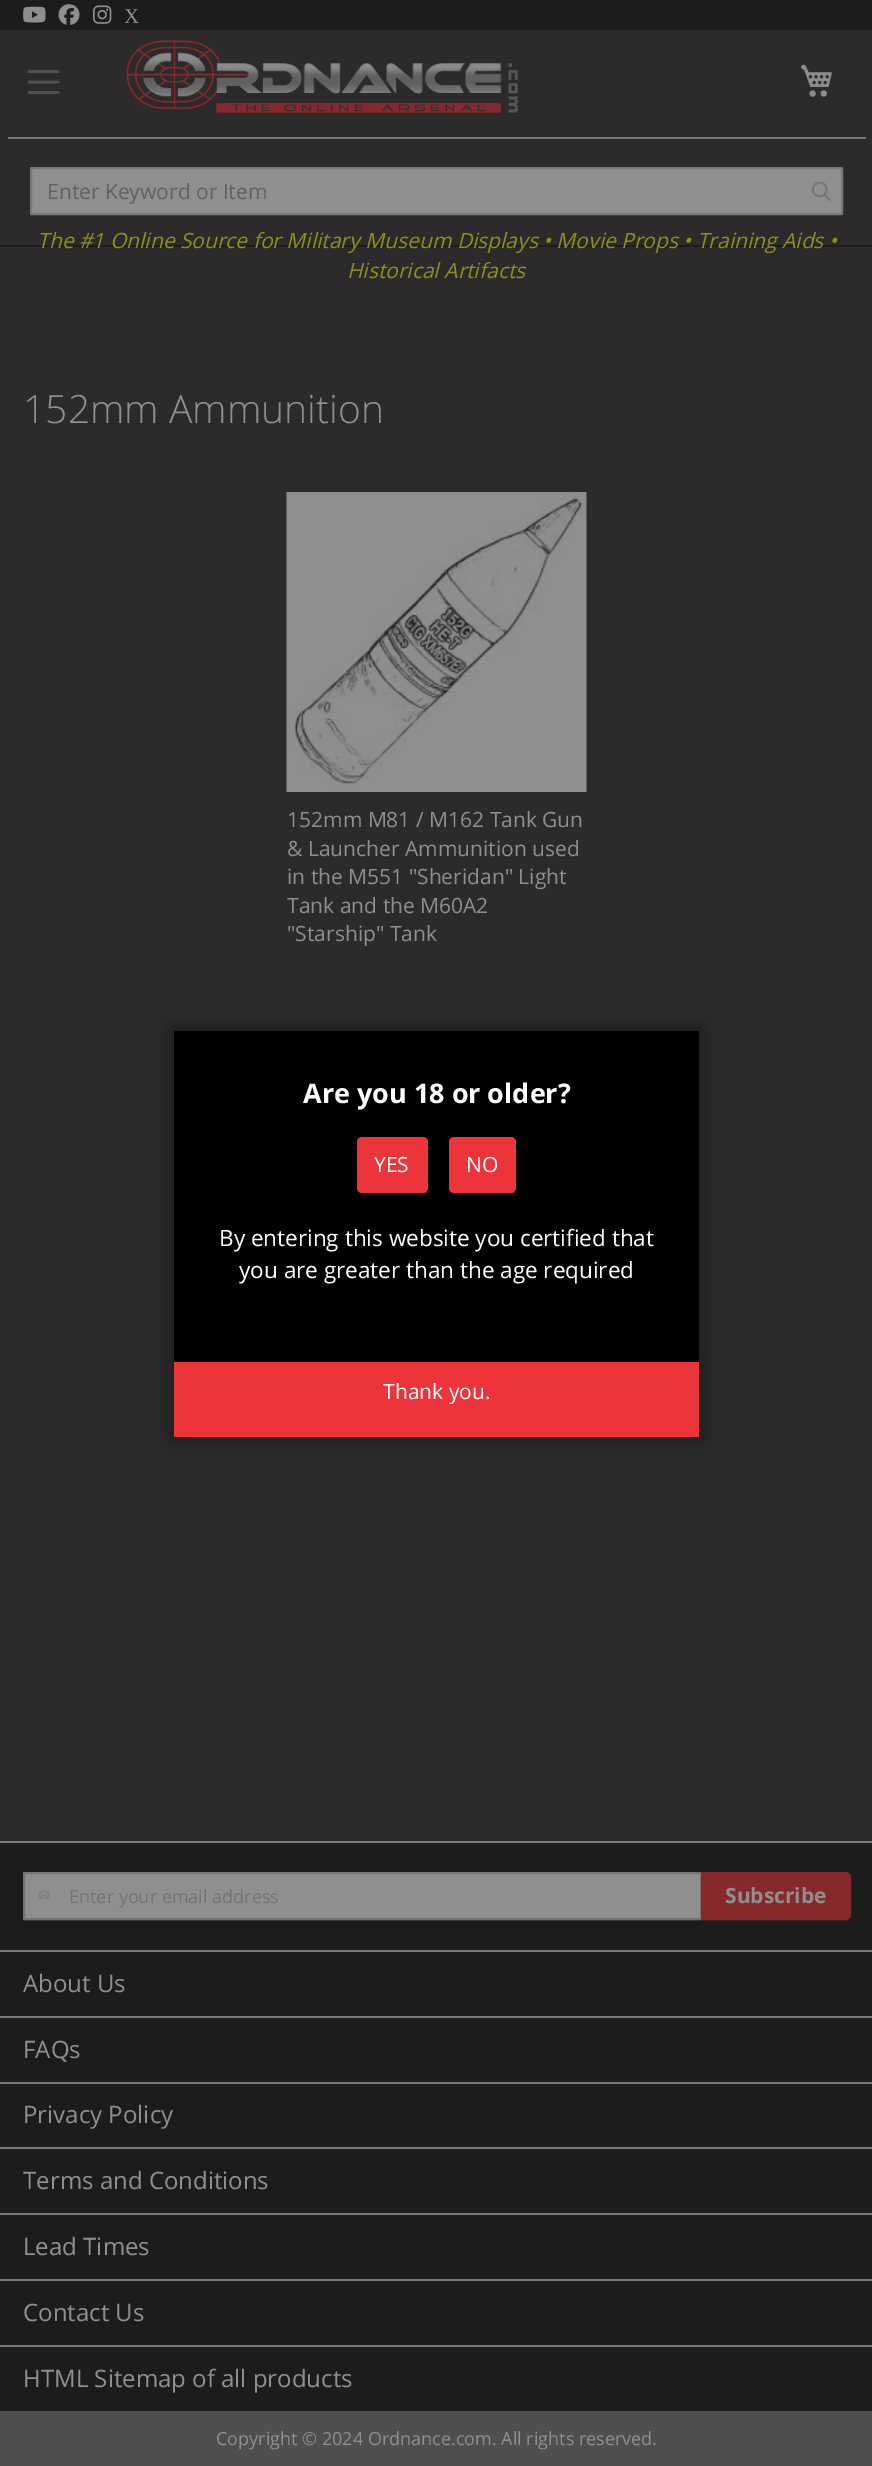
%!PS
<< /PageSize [872 2466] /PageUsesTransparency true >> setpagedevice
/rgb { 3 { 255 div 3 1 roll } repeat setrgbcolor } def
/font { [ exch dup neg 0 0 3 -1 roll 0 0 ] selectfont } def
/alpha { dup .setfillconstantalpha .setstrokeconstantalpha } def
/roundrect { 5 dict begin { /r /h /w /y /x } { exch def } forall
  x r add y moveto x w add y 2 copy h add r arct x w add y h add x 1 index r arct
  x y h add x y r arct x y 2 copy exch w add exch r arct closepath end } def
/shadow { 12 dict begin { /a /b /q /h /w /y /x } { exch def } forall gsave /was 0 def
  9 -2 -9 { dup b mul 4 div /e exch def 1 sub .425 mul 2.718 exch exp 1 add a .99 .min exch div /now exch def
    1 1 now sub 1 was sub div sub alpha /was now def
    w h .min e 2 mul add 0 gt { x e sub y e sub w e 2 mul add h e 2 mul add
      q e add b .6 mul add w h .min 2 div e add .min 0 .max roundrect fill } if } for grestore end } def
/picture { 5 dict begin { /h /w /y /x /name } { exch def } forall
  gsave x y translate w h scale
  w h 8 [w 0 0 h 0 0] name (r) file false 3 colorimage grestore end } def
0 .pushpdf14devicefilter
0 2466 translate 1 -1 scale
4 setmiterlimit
44 42 42 rgb
0 0 872 2466 rectfill
28 28 28 rgb
0 245 872 2 rectfill
0 0 872 30 rectfill
(img/1.rgb) 23 6 23 17 picture
(img/2.rgb) 58 4 22 21 picture
(img/3.rgb) 93 5 19 19 picture
(img/4.rgb) 27 70 33 25 picture
(img/5.rgb) 126 40 392 74 picture
(img/6.rgb) 801 64 31 33 picture
120 120 120 rgb
8 137 858 2 rectfill
143 143 143 rgb
31 168 811 46 0.5 roundrect gsave fill grestore
120 120 120 rgb
2 setlinewidth
stroke
(img/7.rgb) 812 182 19 19 picture
(img/8.rgb) 286 492 301 300 picture
28 28 28 rgb
0 1843 872 568 rectfill
121 121 121 rgb
0 1841 872 2 rectfill
143 143 143 rgb
24 1873 677 46 0.5 roundrect gsave fill grestore
115 115 115 rgb
stroke
(img/9.rgb) 39 1891 11 8 picture
134 41 44 rgb
702 1873 moveto 846 1873 lineto 848 1873 850 1875 850 1877 curveto 850 1915 lineto 850 1917 848 1919 846 1919 curveto 702 1919 lineto closepath gsave fill grestore
stroke
[
  [0 1950 872 2 121 121 121]
  [0 2016 872 2 121 121 121]
  [0 2082 872 2 121 121 121]
  [0 2147 872 2 121 121 121]
  [0 2213 872 2 121 121 121]
  [0 2279 872 2 121 121 121]
  [0 2345 872 2 121 121 121]
  [0 2411 872 55 78 79 78]
] { aload pop rgb rectfill } forall
0 0 0 rgb
171 1028 531 412 0 9 0.35 shadow
174 1031 525 331 rectfill
238 52 59 rgb
357 1137 71 56 5 roundrect fill
449 1137 67 56 5 roundrect fill
174 1362 525 75 rectfill
/LiberationSerif-Regular 21 font
143 143 143 rgb
124 23 moveto (X) show
/OpenSans-Regular 21 font
97 97 97 rgb
47 199 moveto (Enter Keyword or Item) show
/OpenSans-Italic 21 font
143 143 28 rgb
37 248 moveto (The #1 Online Source for Military Museum Displays • Movie Props • Training Aids •) show
347 278 moveto (Historical Artifacts) show
/OpenSans-Light 39 font
143 143 143 rgb
23 423 moveto (152mm Ammunition) show
/OpenSans-Regular 21 font
[
  [(152mm M81 / M162 Tank Gun) 287 827]
  [(& Launcher Ammunition used) 287 856]
  [(in the M551 "Sheridan" Light) 287 884]
  [(Tank and the M60A2) 287 913]
  [("Starship" Tank) 287 941]
] { aload pop moveto show } forall
/OpenSans-Regular 18 font
115 115 115 rgb
69 1903 moveto (Enter your email address) show
/OpenSans-Bold 21 font
143 143 143 rgb
725 1903 moveto (Subscribe) show
/OpenSans-Regular 24 font
[
  [(About Us) 23 1992]
  [(FAQs) 23 2058]
  [(Privacy Policy) 23 2123]
  [(Terms and Conditions) 23 2189]
  [(Lead Times) 23 2255]
  [(Contact Us) 23 2321]
  [(HTML Sitemap of all products) 23 2387]
] { aload pop moveto show } forall
/OpenSans-Regular 18 font
216 2445 moveto (Copyright © 2024 Ordnance.com. All rights reserved.) show
/OpenSans-Bold 27 font
255 255 255 rgb
303 1103 moveto (Are you 18 or older?) show
/OpenSans-Regular 21 font
374 1172 moveto (YES) show
466 1172 moveto (NO) show
/OpenSans-Regular 22.5 font
219 1246 moveto (By entering this website you certified that) show
239 1278 moveto (you are greater than the age required) show
/OpenSans-Regular 21 font
383 1399 moveto (Thank you.) show
.poppdf14devicefilter showpage
